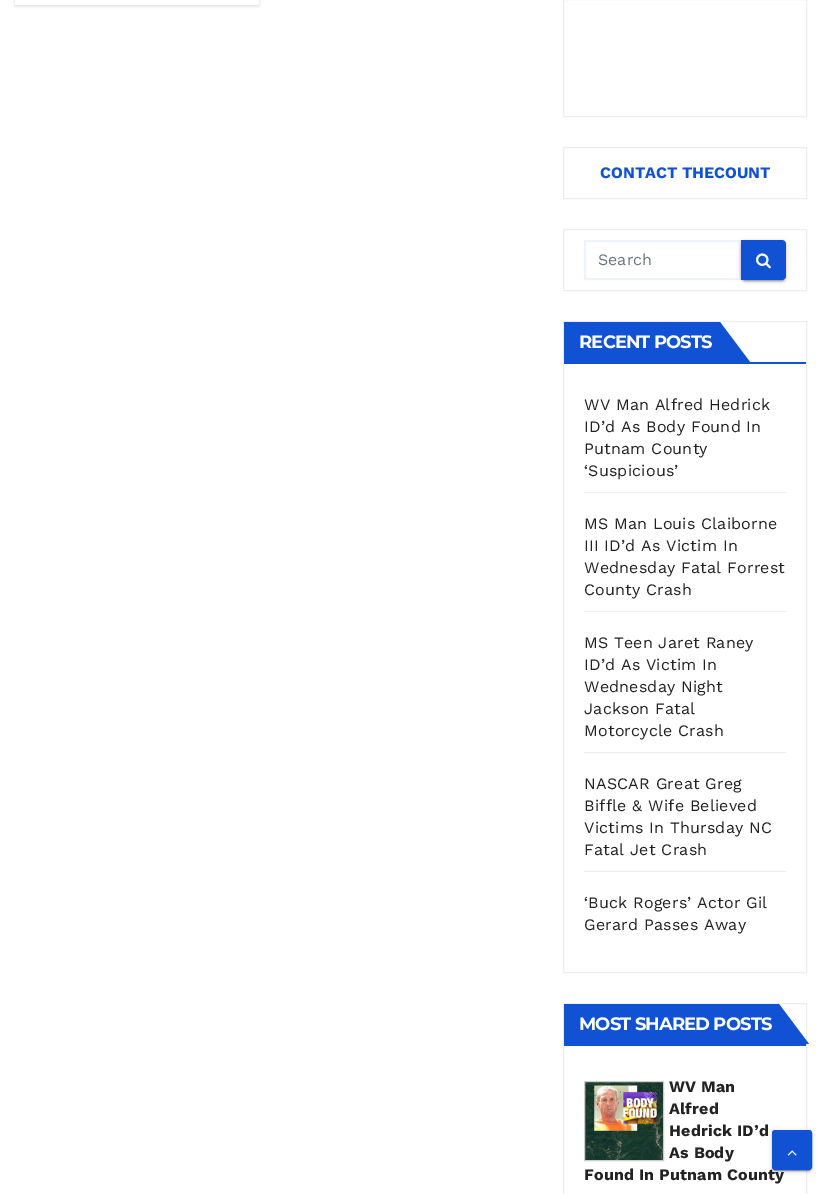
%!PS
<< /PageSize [822 1194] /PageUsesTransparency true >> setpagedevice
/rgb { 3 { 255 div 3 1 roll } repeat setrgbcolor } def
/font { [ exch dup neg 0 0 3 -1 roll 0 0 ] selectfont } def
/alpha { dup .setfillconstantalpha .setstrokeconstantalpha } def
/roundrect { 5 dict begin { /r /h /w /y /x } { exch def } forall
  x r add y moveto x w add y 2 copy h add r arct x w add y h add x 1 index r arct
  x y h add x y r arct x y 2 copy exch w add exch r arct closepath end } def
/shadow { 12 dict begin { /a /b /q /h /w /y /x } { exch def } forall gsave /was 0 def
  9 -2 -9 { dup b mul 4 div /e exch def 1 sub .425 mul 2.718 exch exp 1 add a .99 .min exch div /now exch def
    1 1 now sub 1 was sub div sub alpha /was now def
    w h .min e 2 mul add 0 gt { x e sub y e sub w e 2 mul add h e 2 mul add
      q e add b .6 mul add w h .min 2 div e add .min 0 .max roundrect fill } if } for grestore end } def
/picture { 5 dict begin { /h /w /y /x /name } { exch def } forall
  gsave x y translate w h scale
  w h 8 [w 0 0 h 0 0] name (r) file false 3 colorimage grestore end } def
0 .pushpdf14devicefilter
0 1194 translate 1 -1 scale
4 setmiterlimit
255 255 255 rgb
0 0 822 1194 rectfill
gsave
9 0 moveto 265 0 lineto 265 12 lineto 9 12 lineto closepath 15 -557 moveto 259 -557 lineto 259 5 lineto 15 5 lineto closepath eoclip newpath
0 0 0 rgb
15 -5 244 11 0 1.5 0.15 shadow
grestore
238 238 238 rgb
563.5 -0.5 243 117 rectstroke
563.5 147.5 243 51 rectstroke
563.5 229.5 243 61 rectstroke
238 243 251 rgb
2 setlinewidth
585 241 155 38 rectstroke
0 0 0 rgb
741 241 45 40 4 2.5 0.12 shadow
743 245 41 36 2 0.5 0.2 shadow
741 242 45 40 4 1 0.14 shadow
17 81 211 rgb
741 240 moveto 782 240 lineto 784 240 786 242 786 244 curveto 786 276 lineto 786 278 784 280 782 280 curveto 741 280 lineto closepath fill
(img/1.rgb) 756 253 15 16 picture
238 238 238 rgb
1 setlinewidth
563.5 321.5 243 651 rectstroke
17 81 211 rgb
564 362 242 2 rectfill
564 322 156 40 rectfill
720 362 moveto 720 322 lineto 750 362 lineto closepath fill
[
  [584 492 202 1 238 238 238]
  [584 611 202 1 238 238 238]
  [584 752 202 1 238 238 238]
  [584 871 202 1 238 238 238]
] { aload pop rgb rectfill } forall
563.5 1003.5 243 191 rectstroke
17 81 211 rgb
564 1044 242 2 rectfill
564 1004 215 40 rectfill
779 1044 moveto 779 1004 lineto 809 1044 lineto closepath fill
(img/2.rgb) 585 1082 78 78 picture
204 204 204 rgb
584.5 1081.5 79 79 rectstroke
0 0 0 rgb
772 1131 40 40 3 2.5 0.12 shadow
774 1135 36 36 1 0.5 0.2 shadow
772 1132 40 40 3 1 0.14 shadow
/WorkSans-Bold 16 font
17 81 211 rgb
600 178 moveto (CONTACT THECOUNT) show
/WorkSans-Regular 16 font
108 117 125 rgb
598 265 moveto (Search) show
/Montserrat-Bold 18 font
255 255 255 rgb
579 348 moveto -0.9 0 (RECENT POSTS) ashow
/WorkSans-Regular 16 font
34 34 34 rgb
584 410 moveto 0.2 0 (WV Man Alfred Hedrick) ashow
584 432 moveto 0.2 0 (ID’d As Body Found In) ashow
584 454 moveto 0.2 0 (Putnam County) ashow
584 476 moveto 0.2 0 (‘Suspicious’) ashow
584 529 moveto 0.2 0 (MS Man Louis Claiborne) ashow
584 551 moveto 0.2 0 (III ID’d As Victim In) ashow
584 573 moveto 0.2 0 (Wednesday Fatal Forrest) ashow
584 595 moveto 0.2 0 (County Crash) ashow
584 648 moveto 0.2 0 (MS Teen Jaret Raney) ashow
584 670 moveto 0.2 0 (ID’d As Victim In) ashow
584 692 moveto 0.2 0 (Wednesday Night) ashow
584 714 moveto 0.2 0 (Jackson Fatal) ashow
584 736 moveto 0.2 0 (Motorcycle Crash) ashow
584 789 moveto 0.2 0 (NASCAR Great Greg) ashow
584 811 moveto 0.2 0 (Biffle & Wife Believed) ashow
584 833 moveto 0.2 0 (Victims In Thursday NC) ashow
584 855 moveto 0.2 0 (Fatal Jet Crash) ashow
584 908 moveto 0.2 0 (‘Buck Rogers’ Actor Gil) ashow
584 930 moveto 0.2 0 (Gerard Passes Away) ashow
/Montserrat-Bold 18 font
255 255 255 rgb
579 1030 moveto -0.9 0 (MOST SHARED POSTS) ashow
/WorkSans-Bold 16 font
34 34 34 rgb
669 1092 moveto 0.2 0 (WV Man) ashow
669 1114 moveto 0.2 0 (Alfred) ashow
669 1136 moveto 0.2 0 (Hedrick ID’d) ashow
669 1158 moveto 0.2 0 (As Body) ashow
584 1180 moveto 0.2 0 (Found In Putnam County) ashow
17 81 211 rgb
773 1131 38 38 2 roundrect gsave fill grestore
2 setlinewidth
stroke
(img/3.rgb) 787 1150 10 6 picture
.poppdf14devicefilter showpage
